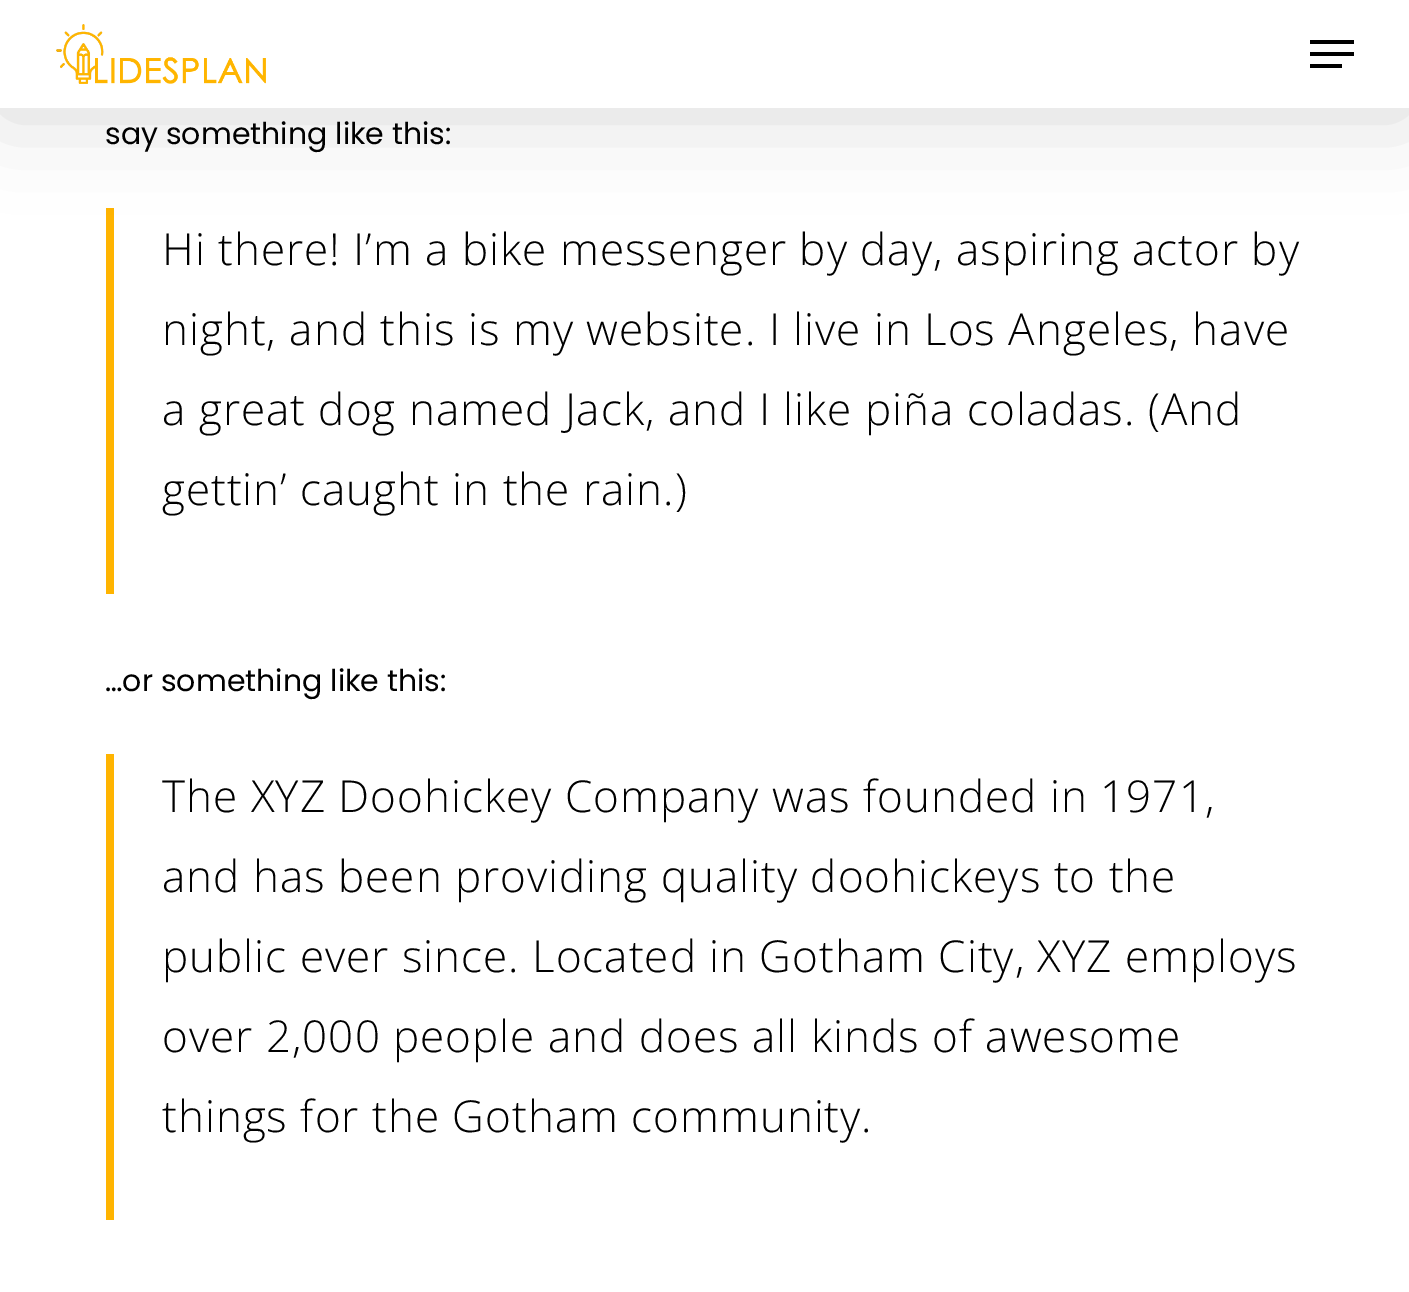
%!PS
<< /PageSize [1409 1292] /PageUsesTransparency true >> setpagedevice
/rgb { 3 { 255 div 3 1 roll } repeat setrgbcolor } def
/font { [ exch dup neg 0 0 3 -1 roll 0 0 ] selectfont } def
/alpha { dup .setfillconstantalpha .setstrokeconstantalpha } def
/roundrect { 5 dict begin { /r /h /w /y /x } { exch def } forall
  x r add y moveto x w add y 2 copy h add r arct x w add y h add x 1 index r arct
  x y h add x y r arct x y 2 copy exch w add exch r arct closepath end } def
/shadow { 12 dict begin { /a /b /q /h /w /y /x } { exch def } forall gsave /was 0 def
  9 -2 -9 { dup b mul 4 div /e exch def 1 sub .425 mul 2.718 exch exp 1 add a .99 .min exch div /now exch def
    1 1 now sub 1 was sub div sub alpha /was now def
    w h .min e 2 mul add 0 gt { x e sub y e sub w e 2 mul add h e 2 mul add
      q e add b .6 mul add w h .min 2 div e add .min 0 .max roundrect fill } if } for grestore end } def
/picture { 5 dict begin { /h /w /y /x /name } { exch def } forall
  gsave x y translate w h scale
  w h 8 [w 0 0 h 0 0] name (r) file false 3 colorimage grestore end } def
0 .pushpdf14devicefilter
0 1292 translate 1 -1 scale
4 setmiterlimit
255 255 255 rgb
0 0 1409 1292 rectfill
255 180 0 rgb
106 208 8 386 rectfill
0 0 0 rgb
0 6 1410 108 0 45 0.15 shadow
255 255 255 rgb
0 0 1409 108 rectfill
(img/1.rgb) 56 24 210 60 picture
[
  [1310 40 44 4 0 0 0]
  [1310 64 32 4 0 0 0]
  [1310 52 44 4 0 0 0]
  [106 754 8 466 255 180 0]
] { aload pop rgb rectfill } forall
/Poppins-Regular 30 font
0 0 0 rgb
105 144 moveto (say something like this:) show
/OpenSans-Light 44 font
162 265 moveto 1 0 (Hi there! I’m a bike messenger by day, aspiring actor by) ashow
162 345 moveto 1 0 (night, and this is my website. I live in Los Angeles, have) ashow
162 425 moveto 1 0 (a great dog named Jack, and I like piña coladas. \(And) ashow
162 505 moveto 1 0 (gettin’ caught in the rain.\)) ashow
/Poppins-Regular 30 font
105 691 moveto (…or something like this:) show
/OpenSans-Light 44 font
162 812 moveto 1 0 (The XYZ Doohickey Company was founded in 1971,) ashow
162 892 moveto 1 0 (and has been providing quality doohickeys to the) ashow
162 972 moveto 1 0 (public ever since. Located in Gotham City, XYZ employs) ashow
162 1052 moveto 1 0 (over 2,000 people and does all kinds of awesome) ashow
162 1132 moveto 1 0 (things for the Gotham community.) ashow
.poppdf14devicefilter showpage
